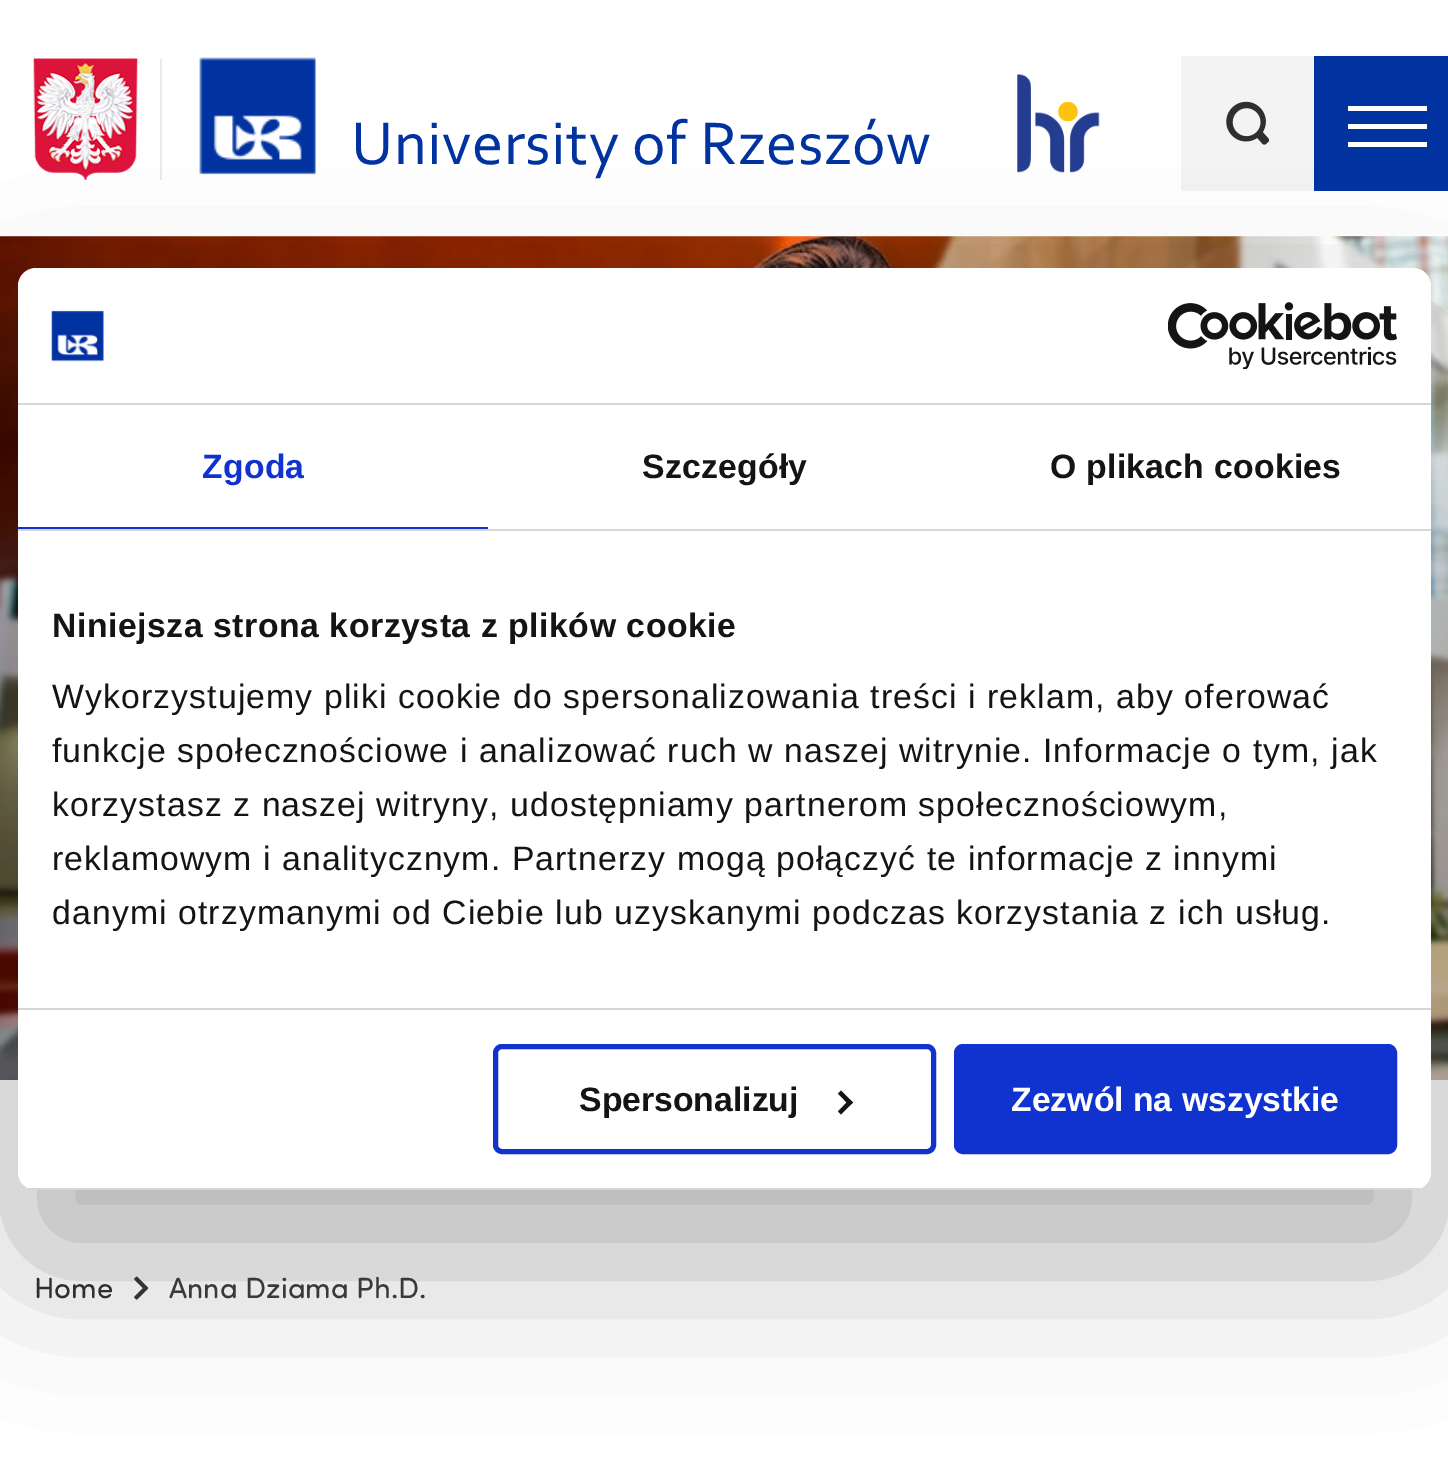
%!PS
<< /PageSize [1448 1457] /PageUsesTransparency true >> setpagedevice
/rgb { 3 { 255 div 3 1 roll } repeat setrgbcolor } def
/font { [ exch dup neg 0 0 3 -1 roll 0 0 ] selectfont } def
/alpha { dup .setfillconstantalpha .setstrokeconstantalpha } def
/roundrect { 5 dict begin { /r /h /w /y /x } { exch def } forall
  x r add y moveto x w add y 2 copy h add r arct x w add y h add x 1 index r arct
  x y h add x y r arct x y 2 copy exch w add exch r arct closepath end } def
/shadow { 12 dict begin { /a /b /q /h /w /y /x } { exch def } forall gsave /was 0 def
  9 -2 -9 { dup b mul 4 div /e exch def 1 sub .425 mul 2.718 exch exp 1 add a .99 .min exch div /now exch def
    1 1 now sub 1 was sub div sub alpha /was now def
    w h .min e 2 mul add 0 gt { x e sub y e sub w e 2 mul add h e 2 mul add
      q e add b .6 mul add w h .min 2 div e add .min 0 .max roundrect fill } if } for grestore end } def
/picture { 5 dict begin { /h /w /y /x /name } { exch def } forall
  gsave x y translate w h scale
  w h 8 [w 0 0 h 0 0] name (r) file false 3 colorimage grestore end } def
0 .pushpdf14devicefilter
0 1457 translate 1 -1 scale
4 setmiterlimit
255 255 255 rgb
0 0 1448 1457 rectfill
234 234 234 rgb
160 59 2 121 rectfill
(img/1.rgb) 33 58 105 122 picture
(img/2.rgb) 199 57 117 118 picture
(img/3.rgb) 1017 74 83 99 picture
243 243 243 rgb
1181 56 133 135 rectfill
(img/4.rgb) 1226 101 44 44 picture
[
  [1314 56 134 135 0 51 160]
  [1348 124 79 5 255 255 255]
  [1348 106 79 5 255 255 255]
  [1348 142 79 5 255 255 255]
] { aload pop rgb rectfill } forall
(img/5.rgb) 0 236 1448 844 picture
(img/6.rgb) 134 1276 15 24 picture
0 0 0 rgb
18 340 1413 922 18 76.5 0.3 shadow
255 255 255 rgb
18 268 1413 922 18 roundrect fill
214 214 214 rgb
18 403 1413 2 rectfill
(img/7.rgb) 51 310 53 52 picture
(img/8.rgb) 1168 302 229 67 picture
[
  [18 529 1413 2 214 214 214]
  [18 527 470 2 16 50 207]
  [18 1008 1413 2 214 214 214]
] { aload pop rgb rectfill } forall
gsave
18 268 1413 922 18 roundrect clip newpath
28 1188 1393 2 rectfill
grestore
16 50 207 rgb
5 setlinewidth
495.5 1046.5 438 105 6.5 roundrect stroke
20 20 20 rgb
841 1090.5 moveto 853 1102.5 lineto 849.5 1105.5 lineto 838 1093.5 lineto closepath fill
849.5 1099.5 moveto 853 1102.5 lineto 841 1114.5 lineto 838 1111.5 lineto closepath fill
16 50 207 rgb
956.5 1046.5 438 105 6.5 roundrect gsave fill grestore
stroke
/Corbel-Regular 63 font
0 51 160 rgb
351 164 moveto 0.45 0 (University of Rzeszów) ashow
/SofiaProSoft-Regular 29.25 font
47 47 47 rgb
34 1298 moveto (Home) show
57 57 57 rgb
169 1298 moveto (Anna Dziama Ph.D.) show
/LiberationSans-Bold 33.75 font
16 50 207 rgb
202 478 moveto 0.25 0 (Zgoda) ashow
20 20 20 rgb
642 478 moveto 0.25 0 (Szczegóły) ashow
1050 478 moveto 0.25 0 (O plikach cookies) ashow
52 637 moveto 0.55 0 (Niniejsza strona korzysta z plików cookie) ashow
/LiberationSans-Regular 33.75 font
52 708 moveto 1.12 0 (Wykorzystujemy pliki cookie do spersonalizowania treści i reklam, aby oferować) ashow
52 762 moveto 1.12 0 (funkcje społecznościowe i analizować ruch w naszej witrynie. Informacje o tym, jak) ashow
52 816 moveto 1.12 0 (korzystasz z naszej witryny, udostępniamy partnerom społecznościowym,) ashow
52 870 moveto 1.12 0 (reklamowym i analitycznym. Partnerzy mogą połączyć te informacje z innymi) ashow
52 924 moveto 1.12 0 (danymi otrzymanymi od Ciebie lub uzyskanymi podczas korzystania z ich usług.) ashow
/LiberationSans-Bold 33.75 font
579 1111 moveto (Spersonalizuj) show
255 255 255 rgb
1011 1111 moveto (Zezwól na wszystkie) show
.poppdf14devicefilter showpage
